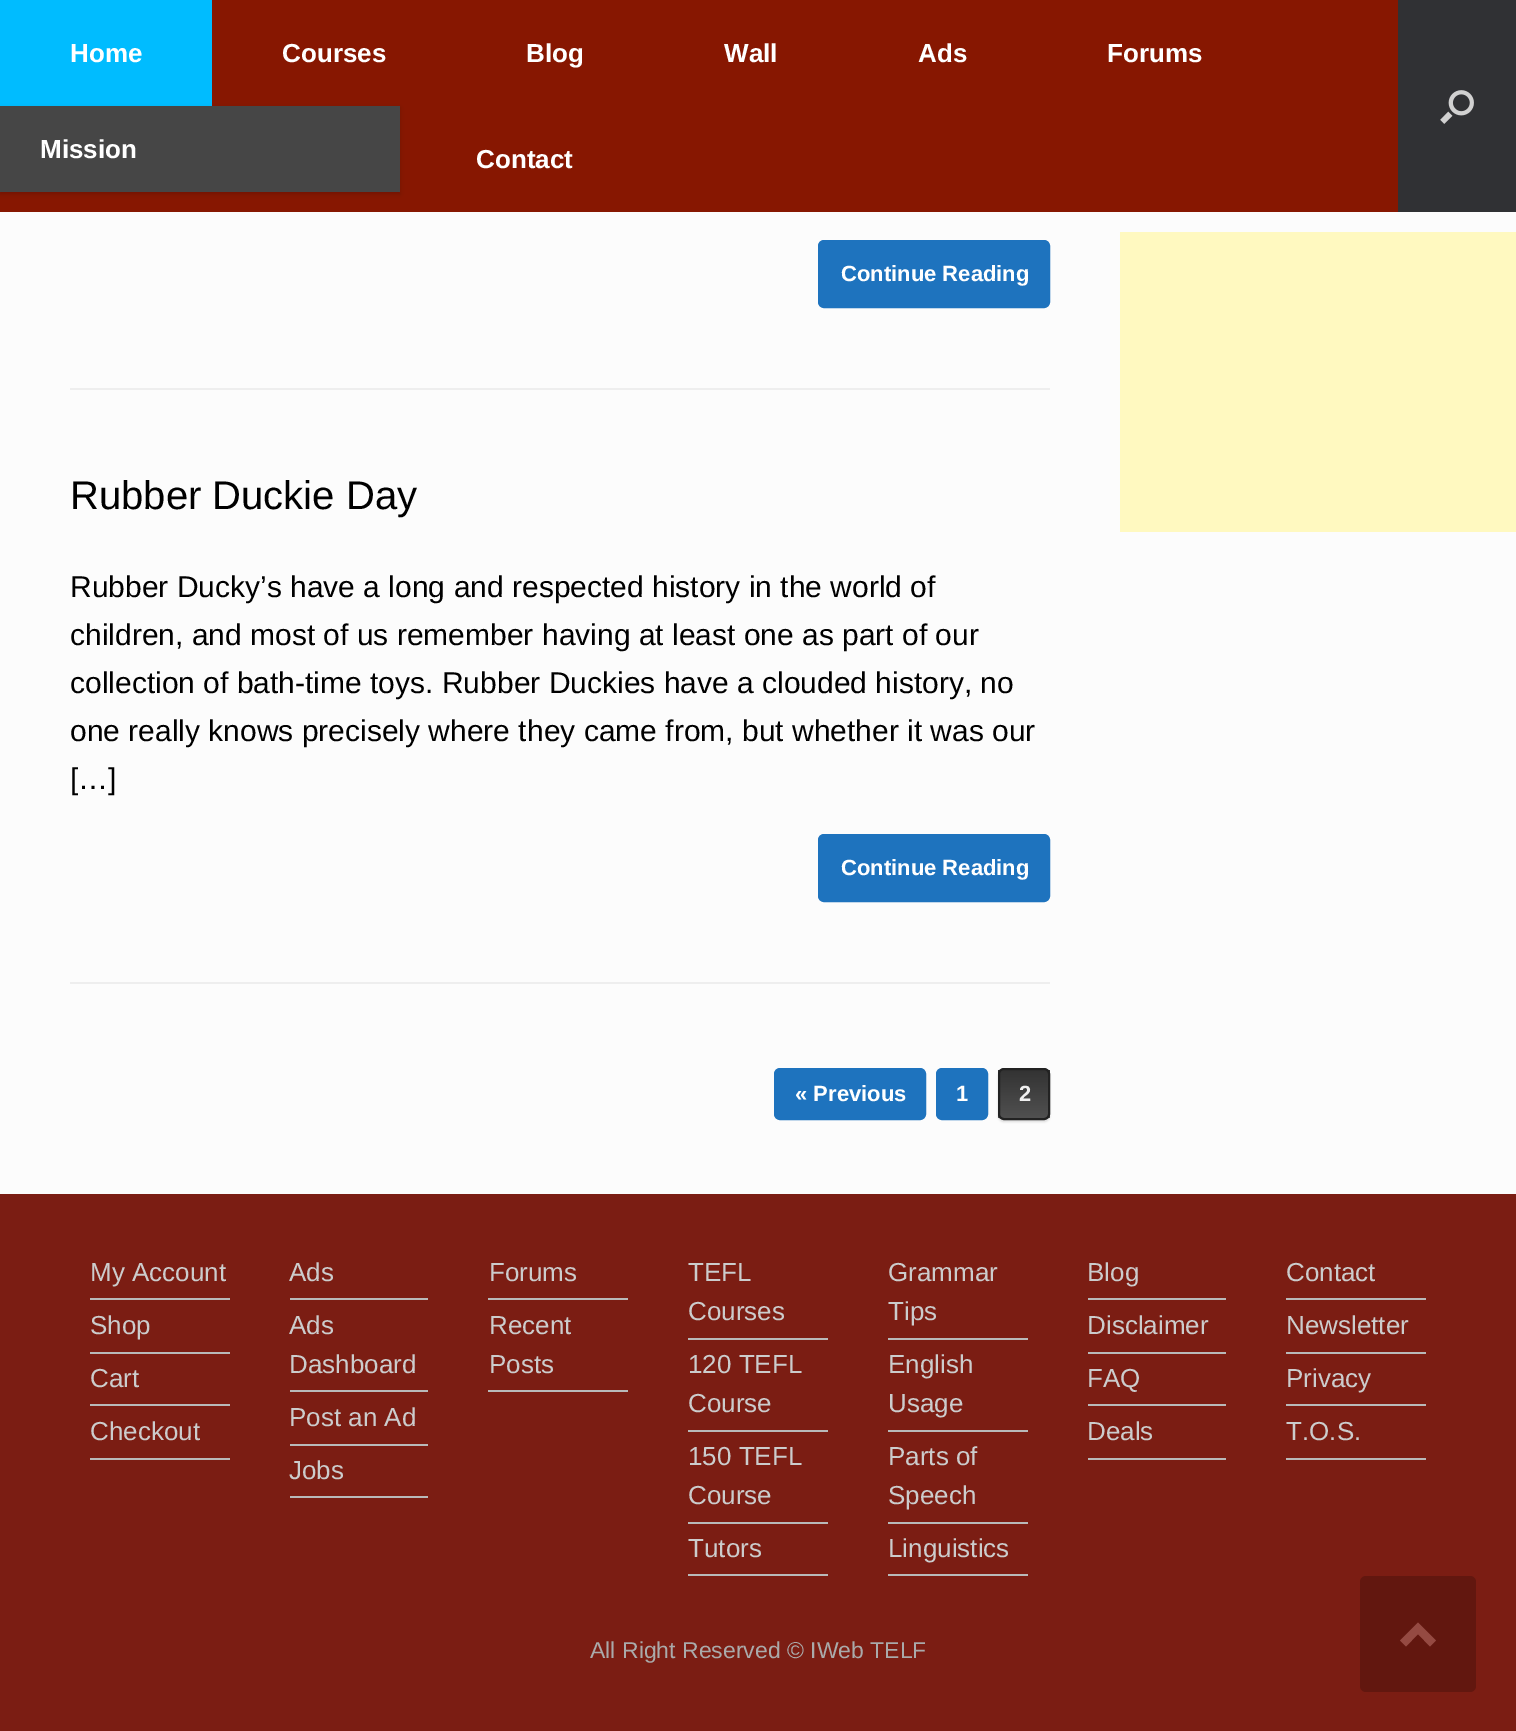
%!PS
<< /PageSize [1516 1731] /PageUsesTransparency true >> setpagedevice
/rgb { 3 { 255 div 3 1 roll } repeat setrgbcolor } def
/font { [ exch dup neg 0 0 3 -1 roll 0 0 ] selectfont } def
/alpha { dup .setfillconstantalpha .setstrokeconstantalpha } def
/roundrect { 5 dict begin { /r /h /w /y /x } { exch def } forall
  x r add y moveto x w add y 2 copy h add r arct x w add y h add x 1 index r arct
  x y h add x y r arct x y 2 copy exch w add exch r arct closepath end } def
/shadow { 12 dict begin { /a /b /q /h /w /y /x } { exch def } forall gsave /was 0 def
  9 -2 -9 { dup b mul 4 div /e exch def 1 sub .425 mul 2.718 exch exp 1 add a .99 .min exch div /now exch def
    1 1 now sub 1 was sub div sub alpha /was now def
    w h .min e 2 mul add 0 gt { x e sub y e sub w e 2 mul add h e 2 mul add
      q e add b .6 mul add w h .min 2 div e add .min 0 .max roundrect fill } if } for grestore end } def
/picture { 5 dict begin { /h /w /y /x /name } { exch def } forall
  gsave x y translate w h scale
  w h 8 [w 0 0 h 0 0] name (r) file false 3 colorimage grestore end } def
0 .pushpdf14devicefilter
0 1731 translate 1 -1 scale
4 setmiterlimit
123 29 19 rgb
0 0 1516 1731 rectfill
135 23 1 rgb
0 0 1398 212 rectfill
0 188 255 rgb
0 0 212 106 rectfill
0 0 0 rgb
0 108 400 86 0 2 0.15 shadow
70 70 70 rgb
0 106 400 86 rectfill
48 49 52 rgb
1398 0 118 212 rectfill
(img/1.rgb) 1440 90 34 34 picture
252 252 252 rgb
0 212 1516 982 rectfill
238 238 238 rgb
70 388 980 2 rectfill
30 115 190 rgb
819 241 230 66 5 roundrect gsave fill grestore
2 setlinewidth
stroke
238 238 238 rgb
70 982 980 2 rectfill
30 115 190 rgb
819 835 230 66 5 roundrect gsave fill grestore
stroke
775 1069 150 50 5 roundrect gsave fill grestore
stroke
937 1069 50 50 5 roundrect gsave fill grestore
stroke
0 0 0 rgb
998 1070 52 52 6 1 0.12 shadow
gsave
998 1068 52 52 6 roundrect clip newpath
gsave 998 1070 moveto 1050 1070 lineto 1050 1118 lineto 998 1118 lineto closepath clip newpath
<< /ShadingType 2 /ColorSpace /DeviceRGB /Coords [1000 1118 1000 1070] /Extend [true true] /Function << /FunctionType 2 /Domain [0 1] /C0 [0.314 0.314 0.314] /C1 [0.2 0.2 0.2] /N 1 >> >> shfill grestore
grestore
34 34 34 rgb
999 1069 50 50 5 roundrect stroke
[
  [1120 232 396 300 255 249 192]
  [90 1298 140 2 185 185 185]
  [90 1352 140 2 185 185 185]
  [90 1404 140 2 185 185 185]
  [90 1458 140 2 185 185 185]
  [290 1298 138 2 185 185 185]
  [290 1390 138 2 185 185 185]
  [290 1444 138 2 185 185 185]
  [290 1496 138 2 185 185 185]
  [488 1298 140 2 185 185 185]
  [488 1390 140 2 185 185 185]
  [688 1338 140 2 185 185 185]
  [688 1430 140 2 185 185 185]
  [688 1522 140 2 185 185 185]
  [688 1574 140 2 185 185 185]
  [888 1338 140 2 185 185 185]
  [888 1430 140 2 185 185 185]
  [888 1522 140 2 185 185 185]
  [888 1574 140 2 185 185 185]
  [1088 1298 138 2 185 185 185]
  [1088 1352 138 2 185 185 185]
  [1088 1404 138 2 185 185 185]
  [1088 1458 138 2 185 185 185]
  [1286 1298 140 2 185 185 185]
  [1286 1352 140 2 185 185 185]
  [1286 1404 140 2 185 185 185]
  [1286 1458 140 2 185 185 185]
] { aload pop rgb rectfill } forall
98 23 15 rgb
1360 1576 116 116 6 roundrect fill
149 74 66 rgb
1436 1640.5 moveto 1418 1622.5 lineto 1400 1640.5 lineto 1406 1646.5 lineto 1418 1634 lineto 1430 1646.5 lineto closepath fill
/LiberationSans-Bold 26 font
255 255 255 rgb
[
  [(Home) 70 62]
  [(Mission) 40 158]
  [(Courses) 282 62]
  [(Blog) 526 62]
  [(Wall) 724 62]
  [(Ads) 918 62]
  [(Forums) 1107 62]
  [(Contact) 476 168]
] { aload pop moveto show } forall
/LiberationSans-Bold 22 font
841 281 moveto (Continue Reading) show
/LiberationSans-Regular 40 font
0 0 0 rgb
70 509 moveto (Rubber Duckie Day) show
/LiberationSans-Regular 30 font
[
  [(Rubber Ducky’s have a long and respected history in the world of) 70 597]
  [(children, and most of us remember having at least one as part of our) 70 645]
  [(collection of bath-time toys. Rubber Duckies have a clouded history, no) 70 693]
  [(one really knows precisely where they came from, but whether it was our) 70 741]
  [([…]) 70 789]
] { aload pop moveto show } forall
/LiberationSans-Bold 22 font
255 255 255 rgb
[
  [(Continue Reading) 841 875]
  [(« Previous) 795 1101]
  [(1) 956 1101]
] { aload pop moveto show } forall
239 239 239 rgb
1019 1101 moveto (2) show
/LiberationSans-Regular 26 font
204 204 204 rgb
[
  [(My Account) 90 1281]
  [(Shop) 90 1334]
  [(Cart) 90 1387]
  [(Checkout) 90 1440]
  [(Ads) 289 1281]
  [(Ads) 289 1334]
  [(Dashboard) 289 1373]
  [(Post an Ad) 289 1426]
  [(Jobs) 289 1479]
  [(Forums) 489 1281]
  [(Recent) 489 1334]
  [(Posts) 489 1373]
  [(TEFL) 688 1281]
  [(Courses) 688 1320]
  [(120 TEFL) 688 1373]
  [(Course) 688 1412]
  [(150 TEFL) 688 1465]
  [(Course) 688 1504]
  [(Tutors) 688 1557]
  [(Grammar) 888 1281]
  [(Tips) 888 1320]
  [(English) 888 1373]
  [(Usage) 888 1412]
  [(Parts of) 888 1465]
  [(Speech) 888 1504]
  [(Linguistics) 888 1557]
  [(Blog) 1087 1281]
  [(Disclaimer) 1087 1334]
  [(FAQ) 1087 1387]
  [(Deals) 1087 1440]
  [(Contact) 1286 1281]
  [(Newsletter) 1286 1334]
  [(Privacy) 1286 1387]
  [(T.O.S.) 1286 1440]
] { aload pop moveto show } forall
/LiberationSans-Regular 23 font
170 170 170 rgb
590 1658 moveto (All Right Reserved © IWeb TELF) show
.poppdf14devicefilter showpage
